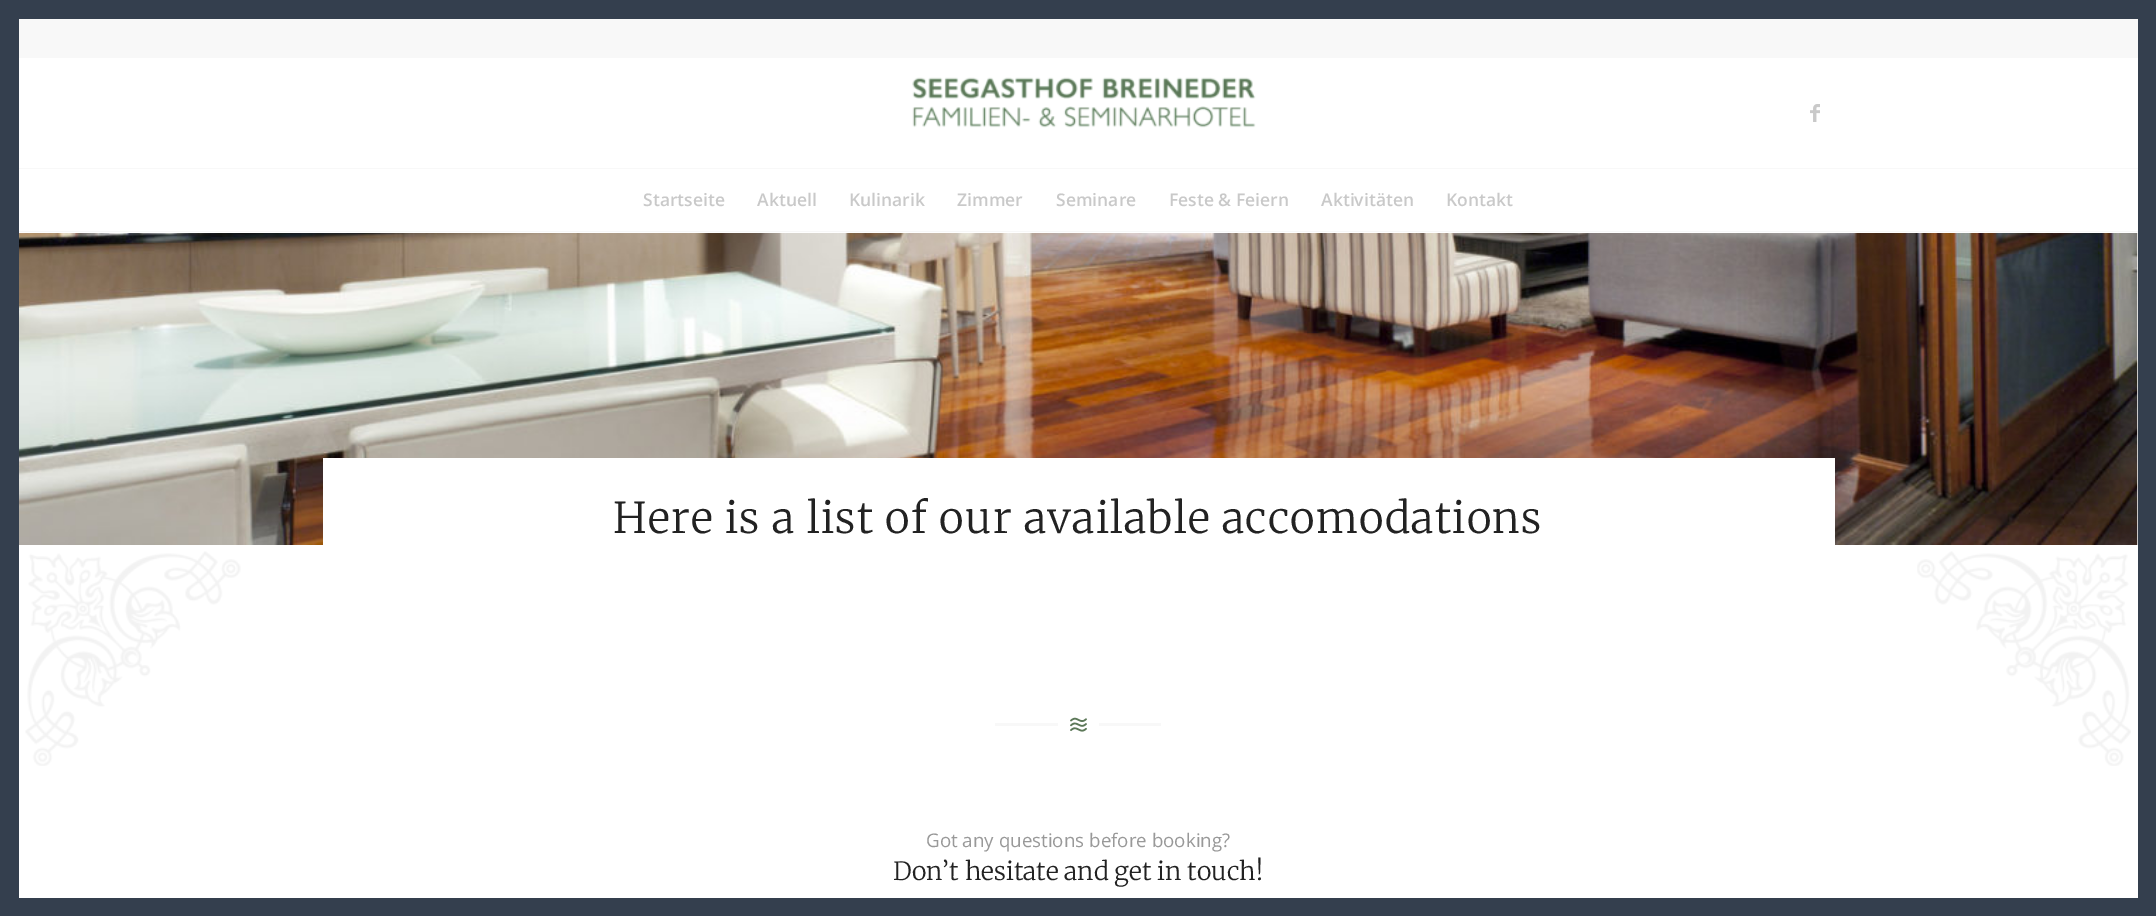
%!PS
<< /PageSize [2156 916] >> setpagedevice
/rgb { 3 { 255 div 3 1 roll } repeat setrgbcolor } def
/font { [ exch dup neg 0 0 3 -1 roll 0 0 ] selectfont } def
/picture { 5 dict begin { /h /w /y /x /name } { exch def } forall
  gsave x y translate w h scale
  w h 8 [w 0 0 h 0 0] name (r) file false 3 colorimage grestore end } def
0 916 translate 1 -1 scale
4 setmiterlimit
255 255 255 rgb
0 0 2156 916 rectfill
[
  [0 0 19 916 52 63 78]
  [19 0 2119 19 52 63 78]
  [2138 0 18 916 52 63 78]
  [19 19 2119 39 248 248 248]
  [19 231 2119 1 248 248 248]
] { aload pop rgb rectfill } forall
(img/1.rgb) 912 77 344 51 picture
(img/2.rgb) 1810 104 10 18 picture
19 168 2119 1 rectfill
(img/3.rgb) 19 233 2119 312 picture
(img/4.rgb) 25 551 2106 215 picture
255 255 255 rgb
323 458 1512 87 rectfill
248 248 248 rgb
995 723 63 3 rectfill
(img/5.rgb) 1070 717 17 15 picture
1099 723 62 3 rectfill
52 63 78 rgb
19 898 2119 18 rectfill
/OpenSans-SemiBold 17.5 font
201 201 201 rgb
[
  [(Startseite) 643 206]
  [(Aktuell) 757 206]
  [(Kulinarik) 849 206]
  [(Zimmer) 957 206]
  [(Seminare) 1056 206]
  [(Feste & Feiern) 1169 206]
  [(Aktivitäten) 1321 206]
  [(Kontakt) 1446 206]
] { aload pop moveto show } forall
/Merriweather-Light 42.5 font
34 34 34 rgb
613 533 moveto 1.25 0 (Here is a list of our available accomodations) ashow
/OpenSans-Regular 18.75 font
153 153 153 rgb
926 847 moveto (Got any questions before booking?) show
/Merriweather-Light 25 font
34 34 34 rgb
893 880 moveto (Don’t hesitate and get in touch!) show
showpage
